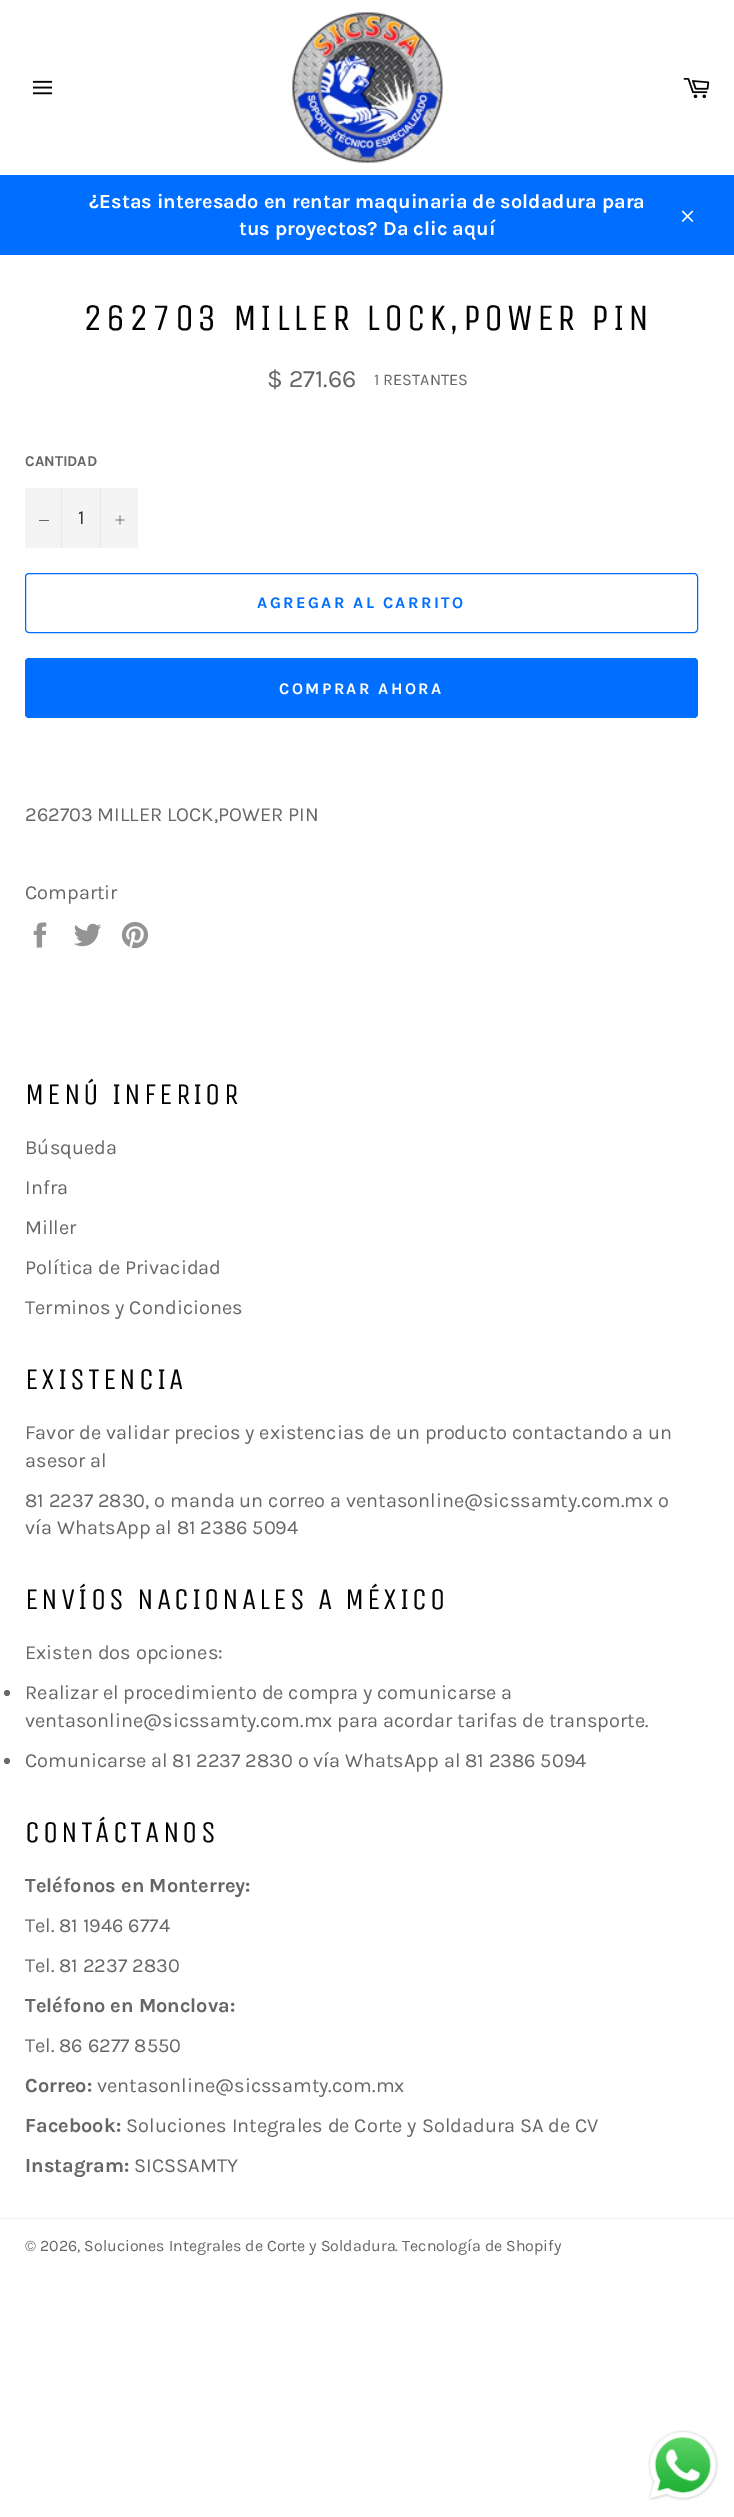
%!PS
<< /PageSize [734 2517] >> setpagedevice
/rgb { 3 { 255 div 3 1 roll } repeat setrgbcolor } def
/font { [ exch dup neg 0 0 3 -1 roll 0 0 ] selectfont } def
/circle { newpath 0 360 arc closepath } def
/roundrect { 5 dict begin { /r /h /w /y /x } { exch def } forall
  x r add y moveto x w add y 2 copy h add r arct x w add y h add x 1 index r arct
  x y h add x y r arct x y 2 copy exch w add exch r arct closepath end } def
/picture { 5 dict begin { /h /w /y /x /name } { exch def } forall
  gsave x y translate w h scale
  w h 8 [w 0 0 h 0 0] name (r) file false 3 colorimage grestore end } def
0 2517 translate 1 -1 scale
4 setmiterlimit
255 255 255 rgb
0 0 734 2517 rectfill
(img/1.rgb) 32 80 21 15 picture
(img/2.rgb) 292 12 151 151 picture
(img/3.rgb) 683 78 27 21 picture
0 110 255 rgb
0 175 734 80 rectfill
(img/4.rgb) 681 210 13 12 picture
[
  [25 488 113 60 244 244 244]
  [61 488 1 60 231 231 231]
  [39 520 10 1 102 102 102]
  [100 488 1 60 231 231 231]
] { aload pop rgb rectfill } forall
(img/5.rgb) 115 515 10 10 picture
0 110 255 rgb
25.5 573.5 672 59 3.5 roundrect stroke
25 658 673 60 4 roundrect fill
(img/6.rgb) 33 922 14 26 picture
(img/7.rgb) 74 923 28 24 picture
(img/8.rgb) 121 921 28 28 picture
104 104 104 rgb
7 1693 3 circle fill
7 1761 3 circle fill
242 242 242 rgb
0 2218 734 1 rectfill
(img/9.rgb) 648 2430 71 71 picture
/Karla-Bold 20 font
255 255 255 rgb
89 208 moveto (¿Estas interesado en rentar maquinaria de soldadura para) show
239 235 moveto (tus proyectos? Da clic aquí) show
/UnicaOne-Regular 37.5 font
3 3 3 rgb
83 330 moveto 3.75 0 (262703 MILLER LOCK,POWER PIN) ashow
/Karla-Regular 25 font
102 102 102 rgb
267 387 moveto ($ 271.66) show
/Karla-Regular 16.25 font
374 385 moveto (1 RESTANTES) show
/Karla-Bold 15 font
25 466 moveto (CANTIDAD) show
/Karla-Regular 20 font
51 51 51 rgb
78 524 moveto (1) show
/Karla-Bold 16.25 font
0 110 255 rgb
257 608 moveto 2.4 0 (AGREGAR AL CARRITO) ashow
255 255 255 rgb
279 694 moveto 2.4 0 (COMPRAR AHORA) ashow
/Karla-Regular 20 font
102 102 102 rgb
25 821 moveto (262703 MILLER LOCK,POWER PIN) show
25 899 moveto (Compartir) show
/UnicaOne-Regular 30 font
3 3 3 rgb
25 1104 moveto 3 0 (MENÚ INFERIOR) ashow
/Karla-Regular 20 font
102 102 102 rgb
[
  [(Búsqueda) 25 1154]
  [(Infra) 25 1194]
  [(Miller) 25 1234]
  [(Política de Privacidad) 25 1274]
  [(Terminos y Condiciones) 25 1314]
] { aload pop moveto show } forall
/UnicaOne-Regular 30 font
3 3 3 rgb
25 1389 moveto 3 0 (EXISTENCIA) ashow
/Karla-Regular 20 font
102 102 102 rgb
[
  [(Favor de validar precios y existencias de un producto contactando a un) 25 1439]
  [(asesor al) 25 1467]
  [(81 2237 2830, o manda un correo a ventasonline@sicssamty.com.mx o) 25 1507]
  [(vía WhatsApp al 81 2386 5094) 25 1534]
] { aload pop moveto show } forall
/UnicaOne-Regular 30 font
3 3 3 rgb
25 1609 moveto 3 0 (ENVÍOS NACIONALES A MÉXICO) ashow
/Karla-Regular 20 font
102 102 102 rgb
[
  [(Existen dos opciones:) 25 1659]
  [(Realizar el procedimiento de compra y comunicarse a) 25 1699]
  [(ventasonline@sicssamty.com.mx para acordar tarifas de transporte.) 25 1727]
  [(Comunicarse al 81 2237 2830 o vía WhatsApp al 81 2386 5094) 25 1767]
] { aload pop moveto show } forall
/UnicaOne-Regular 30 font
3 3 3 rgb
25 1842 moveto 3 0 (CONTÁCTANOS) ashow
/Karla-Bold 20 font
102 102 102 rgb
25 1892 moveto (Teléfonos en Monterrey:) show
/Karla-Regular 20 font
25 1932 moveto (Tel. 81 1946 6774) show
25 1972 moveto (Tel. 81 2237 2830) show
/Karla-Bold 20 font
25 2012 moveto (Teléfono en Monclova:) show
/Karla-Regular 20 font
25 2052 moveto (Tel. 86 6277 8550) show
/Karla-Bold 20 font
25 2092 moveto (Correo:) show
/Karla-Regular 20 font
97 2092 moveto (ventasonline@sicssamty.com.mx) show
/Karla-Bold 20 font
25 2132 moveto (Facebook:) show
/Karla-Regular 20 font
126 2132 moveto (Soluciones Integrales de Corte y Soldadura SA de CV) show
/Karla-Bold 20 font
25 2172 moveto (Instagram:) show
/Karla-Regular 20 font
134 2172 moveto (SICSSAMTY) show
/Karla-Regular 16 font
25 2251 moveto (© 2026, Soluciones Integrales de Corte y Soldadura. Tecnología de Shopify) show
showpage
